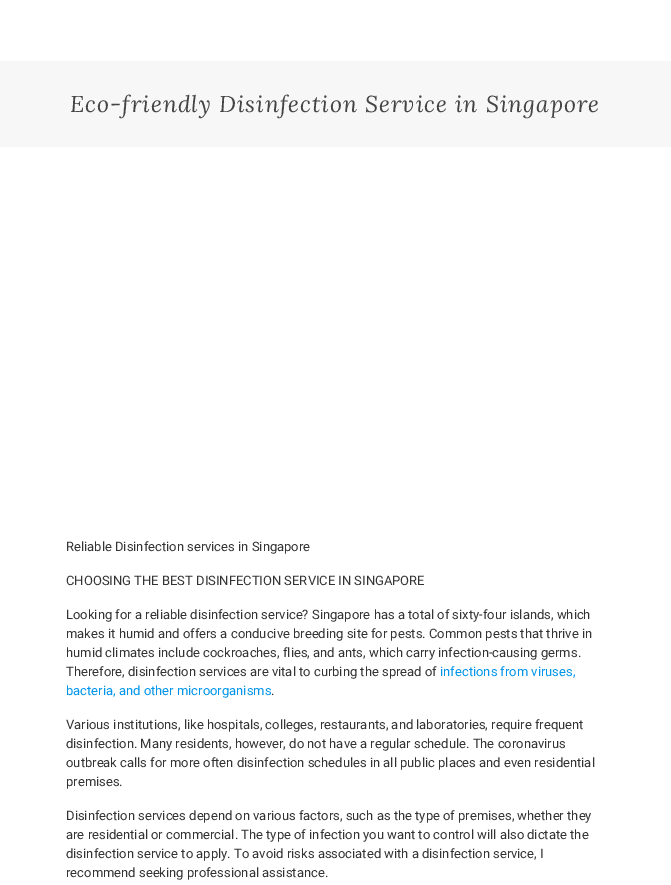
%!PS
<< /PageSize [671 885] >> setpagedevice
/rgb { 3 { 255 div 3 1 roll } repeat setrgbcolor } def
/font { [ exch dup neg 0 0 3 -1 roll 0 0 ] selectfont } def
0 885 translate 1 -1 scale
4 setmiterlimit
255 255 255 rgb
0 0 671 885 rectfill
247 247 247 rgb
0 61 671 86 rectfill
/Lora-Italic 23 font
68 68 68 rgb
70 112 moveto 1 0 (Eco-friendly Disinfection Service in Singapore) ashow
/Roboto-Regular 13 font
51 51 51 rgb
[
  [(Reliable Disinfection services in Singapore) 66 551]
  [(CHOOSING THE BEST DISINFECTION SERVICE IN SINGAPORE) 66 585]
  [(Looking for a reliable disinfection service? Singapore has a total of sixty-four islands, which) 66 619]
  [(makes it humid and offers a conducive breeding site for pests. Common pests that thrive in) 66 638]
  [(humid climates include cockroaches, flies, and ants, which carry infection-causing germs.) 66 657]
  [(Therefore, disinfection services are vital to curbing the spread of) 66 676]
] { aload pop moveto show } forall
0 149 235 rgb
440 676 moveto (infections from viruses,) show
66 695 moveto (bacteria, and other microorganisms) show
51 51 51 rgb
[
  [(.) 271 695]
  [(Various institutions, like hospitals, colleges, restaurants, and laboratories, require frequent) 66 729]
  [(disinfection. Many residents, however, do not have a regular schedule. The coronavirus) 66 748]
  [(outbreak calls for more often disinfection schedules in all public places and even residential) 66 767]
  [(premises.) 66 786]
  [(Disinfection services depend on various factors, such as the type of premises, whether they) 66 820]
  [(are residential or commercial. The type of infection you want to control will also dictate the) 66 839]
  [(disinfection service to apply. To avoid risks associated with a disinfection service, I) 66 858]
  [(recommend seeking professional assistance.) 66 877]
] { aload pop moveto show } forall
showpage
